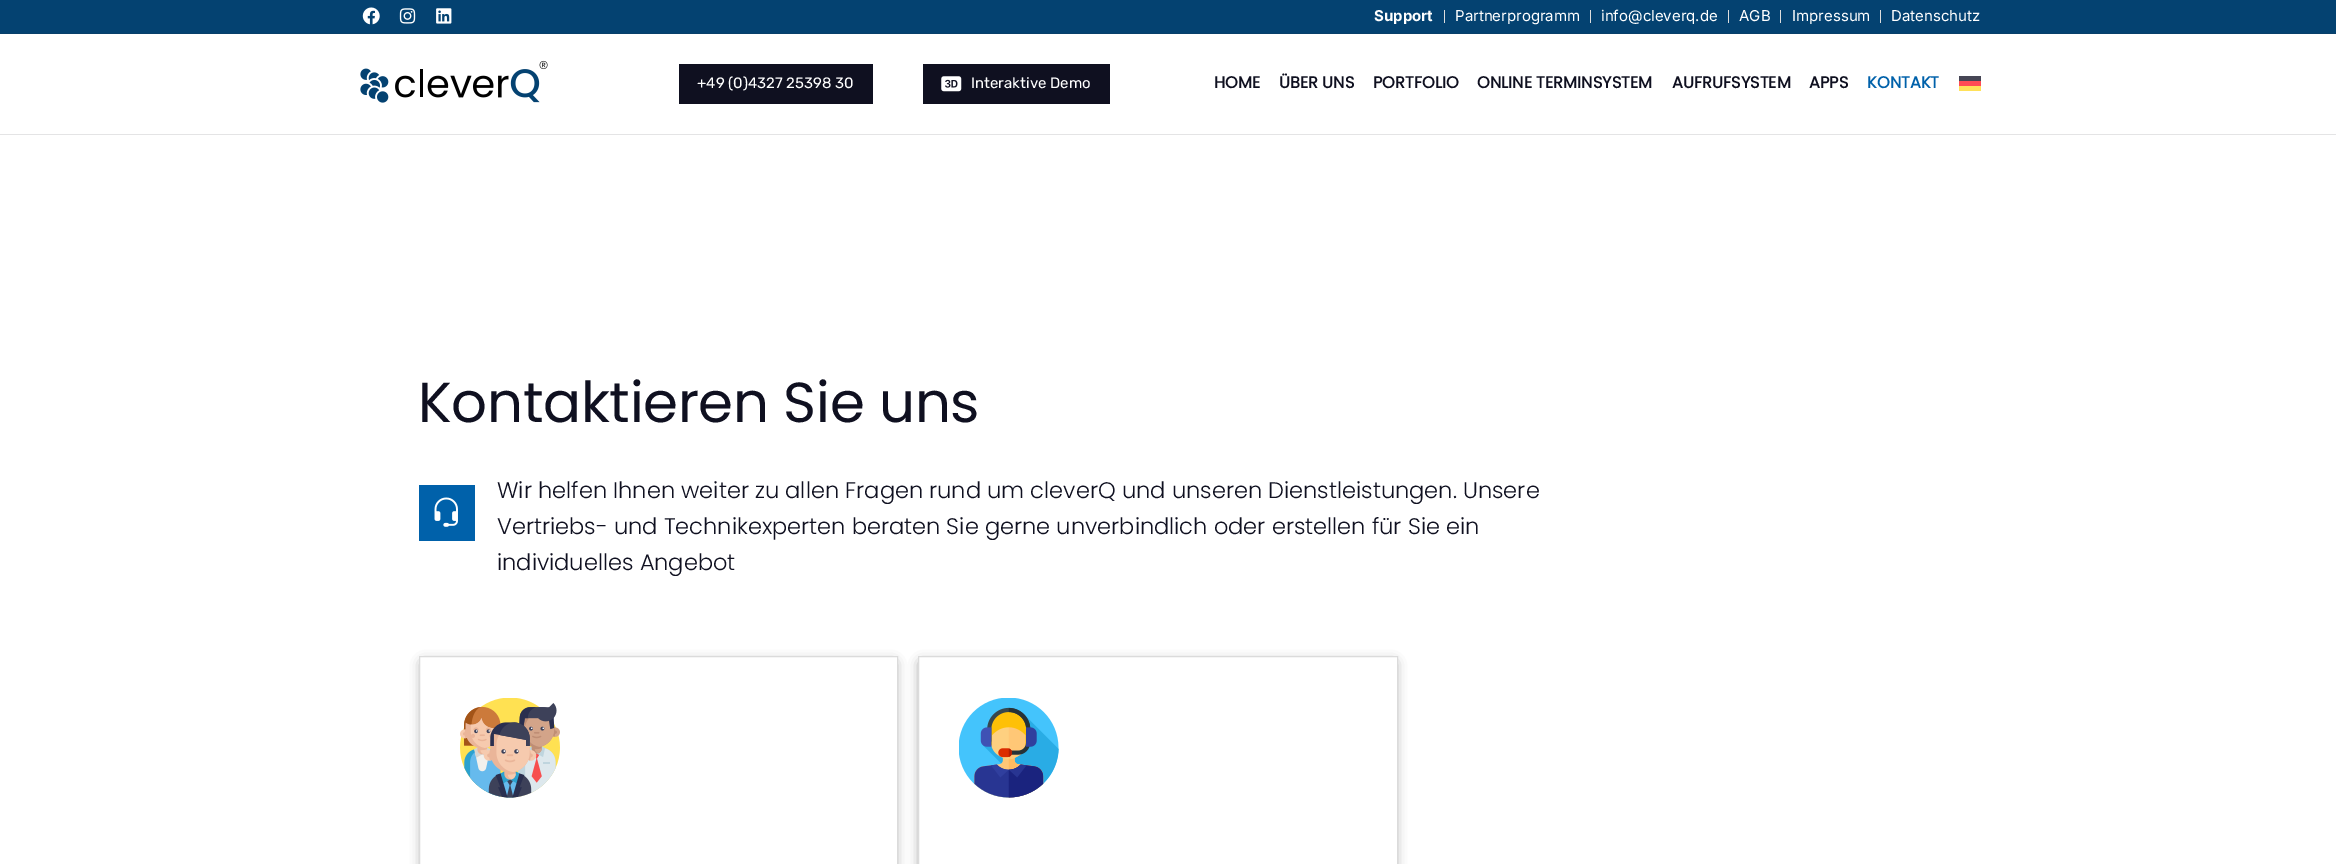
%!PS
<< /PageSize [2336 864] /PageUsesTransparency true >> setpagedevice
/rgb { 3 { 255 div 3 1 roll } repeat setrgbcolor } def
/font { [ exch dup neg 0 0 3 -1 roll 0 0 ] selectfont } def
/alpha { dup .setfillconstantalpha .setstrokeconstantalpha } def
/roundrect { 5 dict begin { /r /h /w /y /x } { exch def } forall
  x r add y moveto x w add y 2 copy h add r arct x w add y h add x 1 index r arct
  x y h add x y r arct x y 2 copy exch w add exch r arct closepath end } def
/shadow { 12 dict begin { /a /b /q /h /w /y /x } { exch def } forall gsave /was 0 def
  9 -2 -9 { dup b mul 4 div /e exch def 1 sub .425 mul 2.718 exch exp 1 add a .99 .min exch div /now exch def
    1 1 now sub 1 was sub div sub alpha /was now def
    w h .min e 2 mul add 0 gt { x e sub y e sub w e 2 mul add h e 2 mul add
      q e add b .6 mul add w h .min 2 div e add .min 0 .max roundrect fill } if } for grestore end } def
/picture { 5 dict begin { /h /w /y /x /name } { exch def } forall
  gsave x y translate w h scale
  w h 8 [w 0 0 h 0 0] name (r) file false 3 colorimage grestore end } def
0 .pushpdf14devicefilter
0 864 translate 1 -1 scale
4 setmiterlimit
255 255 255 rgb
0 0 2336 864 rectfill
4 66 113 rgb
0 0 2336 33 rectfill
9 64 106 rgb
0 33 2336 1 rectfill
(img/1.rgb) 362 7 18 18 picture
(img/2.rgb) 399 8 17 16 picture
(img/3.rgb) 436 8 16 16 picture
[
  [1444 10 1 13 221 221 221]
  [1590 10 1 13 221 221 221]
  [1728 10 1 13 221 221 221]
  [1780 10 1 13 221 221 221]
  [1880 10 1 13 221 221 221]
  [0 134 2336 1 228 228 229]
] { aload pop rgb rectfill } forall
(img/4.rgb) 360 60 188 43 picture
15 16 32 rgb
679 64 194 40 rectfill
923 64 187 40 rectfill
(img/5.rgb) 941 76 21 16 picture
[
  [1959 81 22 5 255 75 85]
  [1959 86 22 5 255 225 90]
  [1959 76 22 5 70 70 85]
  [419 485 56 56 0 97 170]
] { aload pop rgb rectfill } forall
(img/6.rgb) 434 497 24 30 picture
0 0 0 rgb
423 663 471 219 0 6 0.5 shadow
255 255 255 rgb
419.5 656.5 moveto 897.5 656.5 lineto 897.5 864.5 lineto 419.5 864.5 lineto closepath gsave fill grestore
219 219 219 rgb
stroke
(img/7.rgb) 460 698 100 100 picture
0 0 0 rgb
921 663 473 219 0 6 0.5 shadow
255 255 255 rgb
918.5 656.5 moveto 1397.5 656.5 lineto 1397.5 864.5 lineto 918.5 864.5 lineto closepath gsave fill grestore
219 219 219 rgb
stroke
(img/8.rgb) 959 698 100 100 picture
/Inter-Bold 15 font
255 255 255 rgb
1374 21 moveto (Support) show
/Inter-Regular 15 font
[
  [(Partnerprogramm) 1455 21]
  [(info@cleverq.de) 1601 21]
  [(AGB) 1739 21]
  [(Impressum) 1792 21]
  [(Datenschutz) 1891 21]
] { aload pop moveto show } forall
/Rubik-Regular 15 font
697 88 moveto (+49 \(0\)4327 25398 30) show
971 88 moveto (Interaktive Demo) show
/Poppins-Bold 16.25 font
15 16 32 rgb
[
  [(HOME) 1214 88]
  [(ÜBER UNS) 1279 88]
  [(PORTFOLIO) 1373 88]
  [(ONLINE TERMINSYSTEM) 1477 88]
  [(AUFRUFSYSTEM) 1672 88]
  [(APPS) 1809 88]
] { aload pop moveto show } forall
0 97 170 rgb
1867 88 moveto (KONTAKT) show
/Poppins-Regular 56.25 font
15 16 32 rgb
418 422 moveto -0.3 0 (Kontaktieren Sie uns) ashow
/Poppins-Light 22.5 font
[
  [(Wir helfen Ihnen weiter zu allen Fragen rund um cleverQ und unseren Dienstleistungen. Unsere) 497 498]
  [(Vertriebs- und Technikexperten beraten Sie gerne unverbindlich oder erstellen für Sie ein) 497 534]
  [(individuelles Angebot) 497 570]
] { aload pop moveto show } forall
.poppdf14devicefilter showpage
